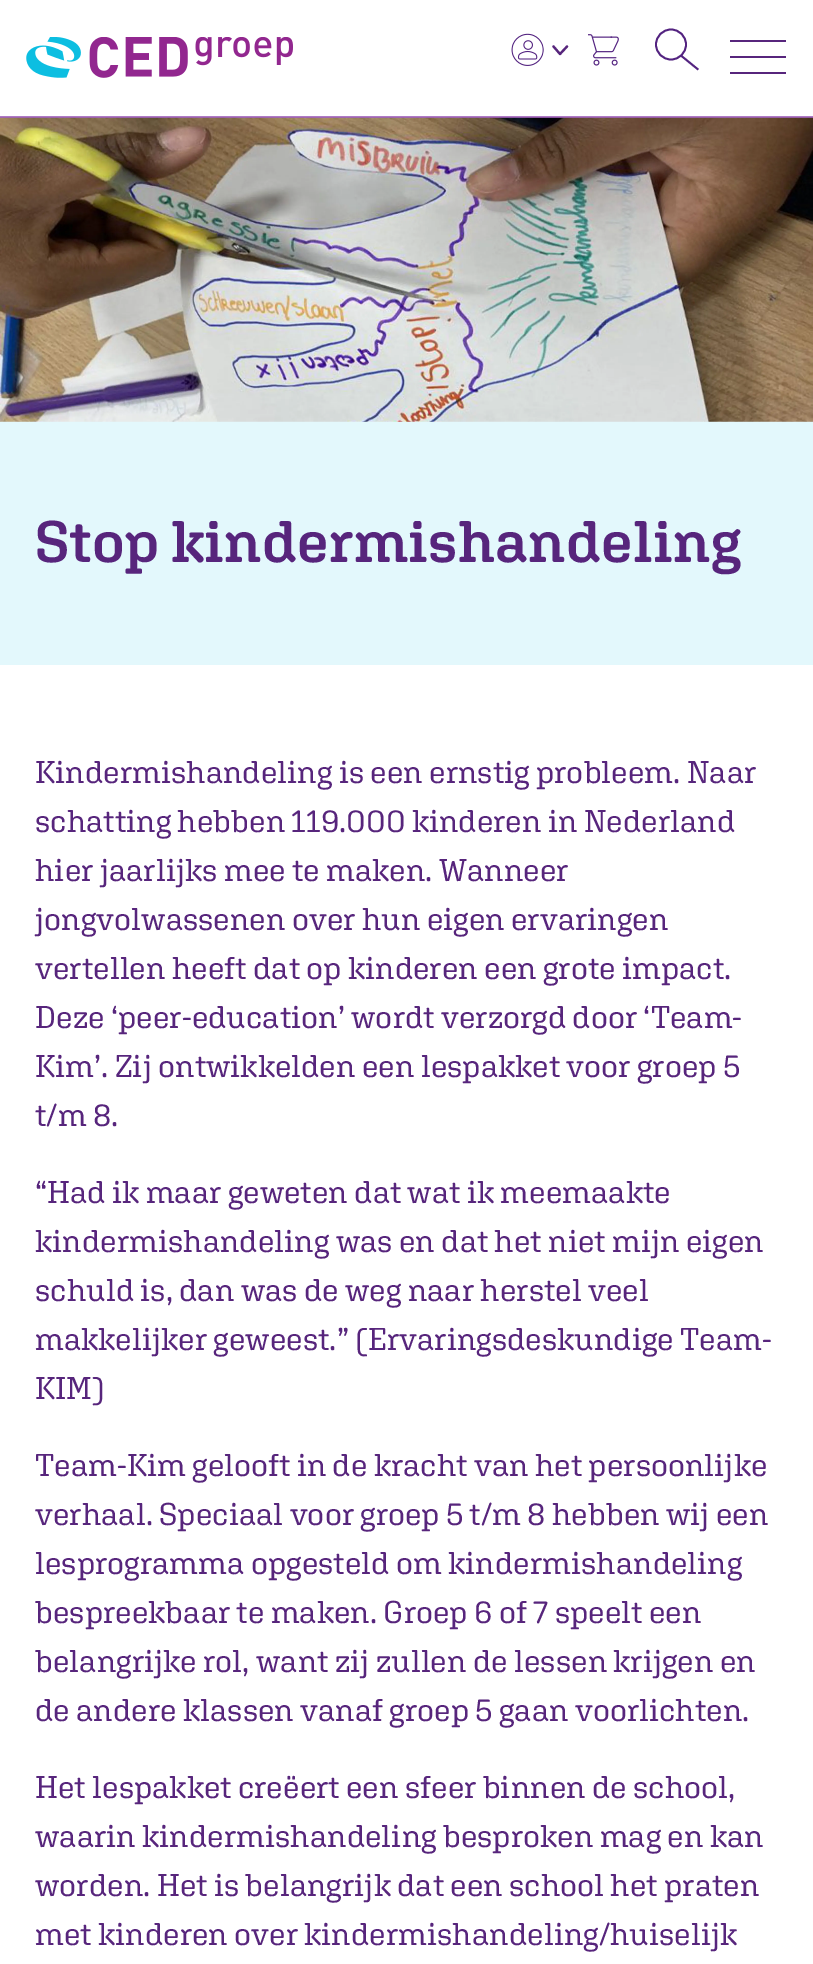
%!PS
<< /PageSize [813 1964] /PageUsesTransparency true >> setpagedevice
/rgb { 3 { 255 div 3 1 roll } repeat setrgbcolor } def
/font { [ exch dup neg 0 0 3 -1 roll 0 0 ] selectfont } def
/alpha { dup .setfillconstantalpha .setstrokeconstantalpha } def
/circle { newpath 0 360 arc closepath } def
/picture { 5 dict begin { /h /w /y /x /name } { exch def } forall
  gsave x y translate w h scale
  w h 8 [w 0 0 h 0 0] name (r) file false 3 colorimage grestore end } def
0 .pushpdf14devicefilter
0 1964 translate 1 -1 scale
4 setmiterlimit
255 255 255 rgb
0 0 813 1964 rectfill
227 248 252 rgb
0 117 813 548 rectfill
(img/4.rgb) 0 117 813 305 picture
0.8 alpha
155 89 182 rgb
0 116 813 2 rectfill
1 alpha
(img/1.rgb) 26 37 267 41 picture
(img/2.rgb) 511 33 33 33 picture
87 37 124 rgb
2.2 setlinewidth
1 setlinecap
1 setlinejoin
567 46.5 moveto 560 54 lineto 553.5 46.5 lineto stroke
(img/3.rgb) 588 34 31 32 picture
83 35 128 rgb
1.8 setlinewidth
0 setlinecap
0 setlinejoin
671 44.5 15 circle stroke
2 setlinecap
681.5 56 moveto 697.5 69 lineto stroke
[
  [730 40 56 2 87 37 124]
  [730 56 56 2 87 37 124]
  [730 72 56 2 87 37 124]
] { aload pop rgb rectfill } forall
/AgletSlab-SemiBold 58.5 font
35 562 moveto (Stop kindermishandeling) show
/AgletSlab-Regular 31.5 font
[
  [(Kindermishandeling is een ernstig probleem. Naar) 35 783]
  [(schatting hebben 119.000 kinderen in Nederland) 35 832]
  [(hier jaarlijks mee te maken. Wanneer) 35 881]
  [(jongvolwassenen over hun eigen ervaringen) 35 930]
  [(vertellen heeft dat op kinderen een grote impact.) 35 979]
  [(Deze ‘peer-education’ wordt verzorgd door ‘Team-) 35 1028]
  [(Kim’. Zij ontwikkelden een lespakket voor groep 5) 35 1077]
  [(t/m 8.) 35 1126]
  [(“Had ik maar geweten dat wat ik meemaakte) 35 1203]
  [(kindermishandeling was en dat het niet mijn eigen) 35 1252]
  [(schuld is, dan was de weg naar herstel veel) 35 1301]
  [(makkelijker geweest.” \(Ervaringsdeskundige Team-) 35 1350]
  [(KIM\)) 35 1399]
  [(Team-Kim gelooft in de kracht van het persoonlijke) 35 1476]
  [(verhaal. Speciaal voor groep 5 t/m 8 hebben wij een) 35 1525]
  [(lesprogramma opgesteld om kindermishandeling) 35 1574]
  [(bespreekbaar te maken. Groep 6 of 7 speelt een) 35 1623]
  [(belangrijke rol, want zij zullen de lessen krijgen en) 35 1672]
  [(de andere klassen vanaf groep 5 gaan voorlichten.) 35 1721]
  [(Het lespakket creëert een sfeer binnen de school,) 35 1798]
  [(waarin kindermishandeling besproken mag en kan) 35 1847]
  [(worden. Het is belangrijk dat een school het praten) 35 1896]
  [(met kinderen over kindermishandeling/huiselijk) 35 1945]
] { aload pop moveto show } forall
.poppdf14devicefilter showpage
